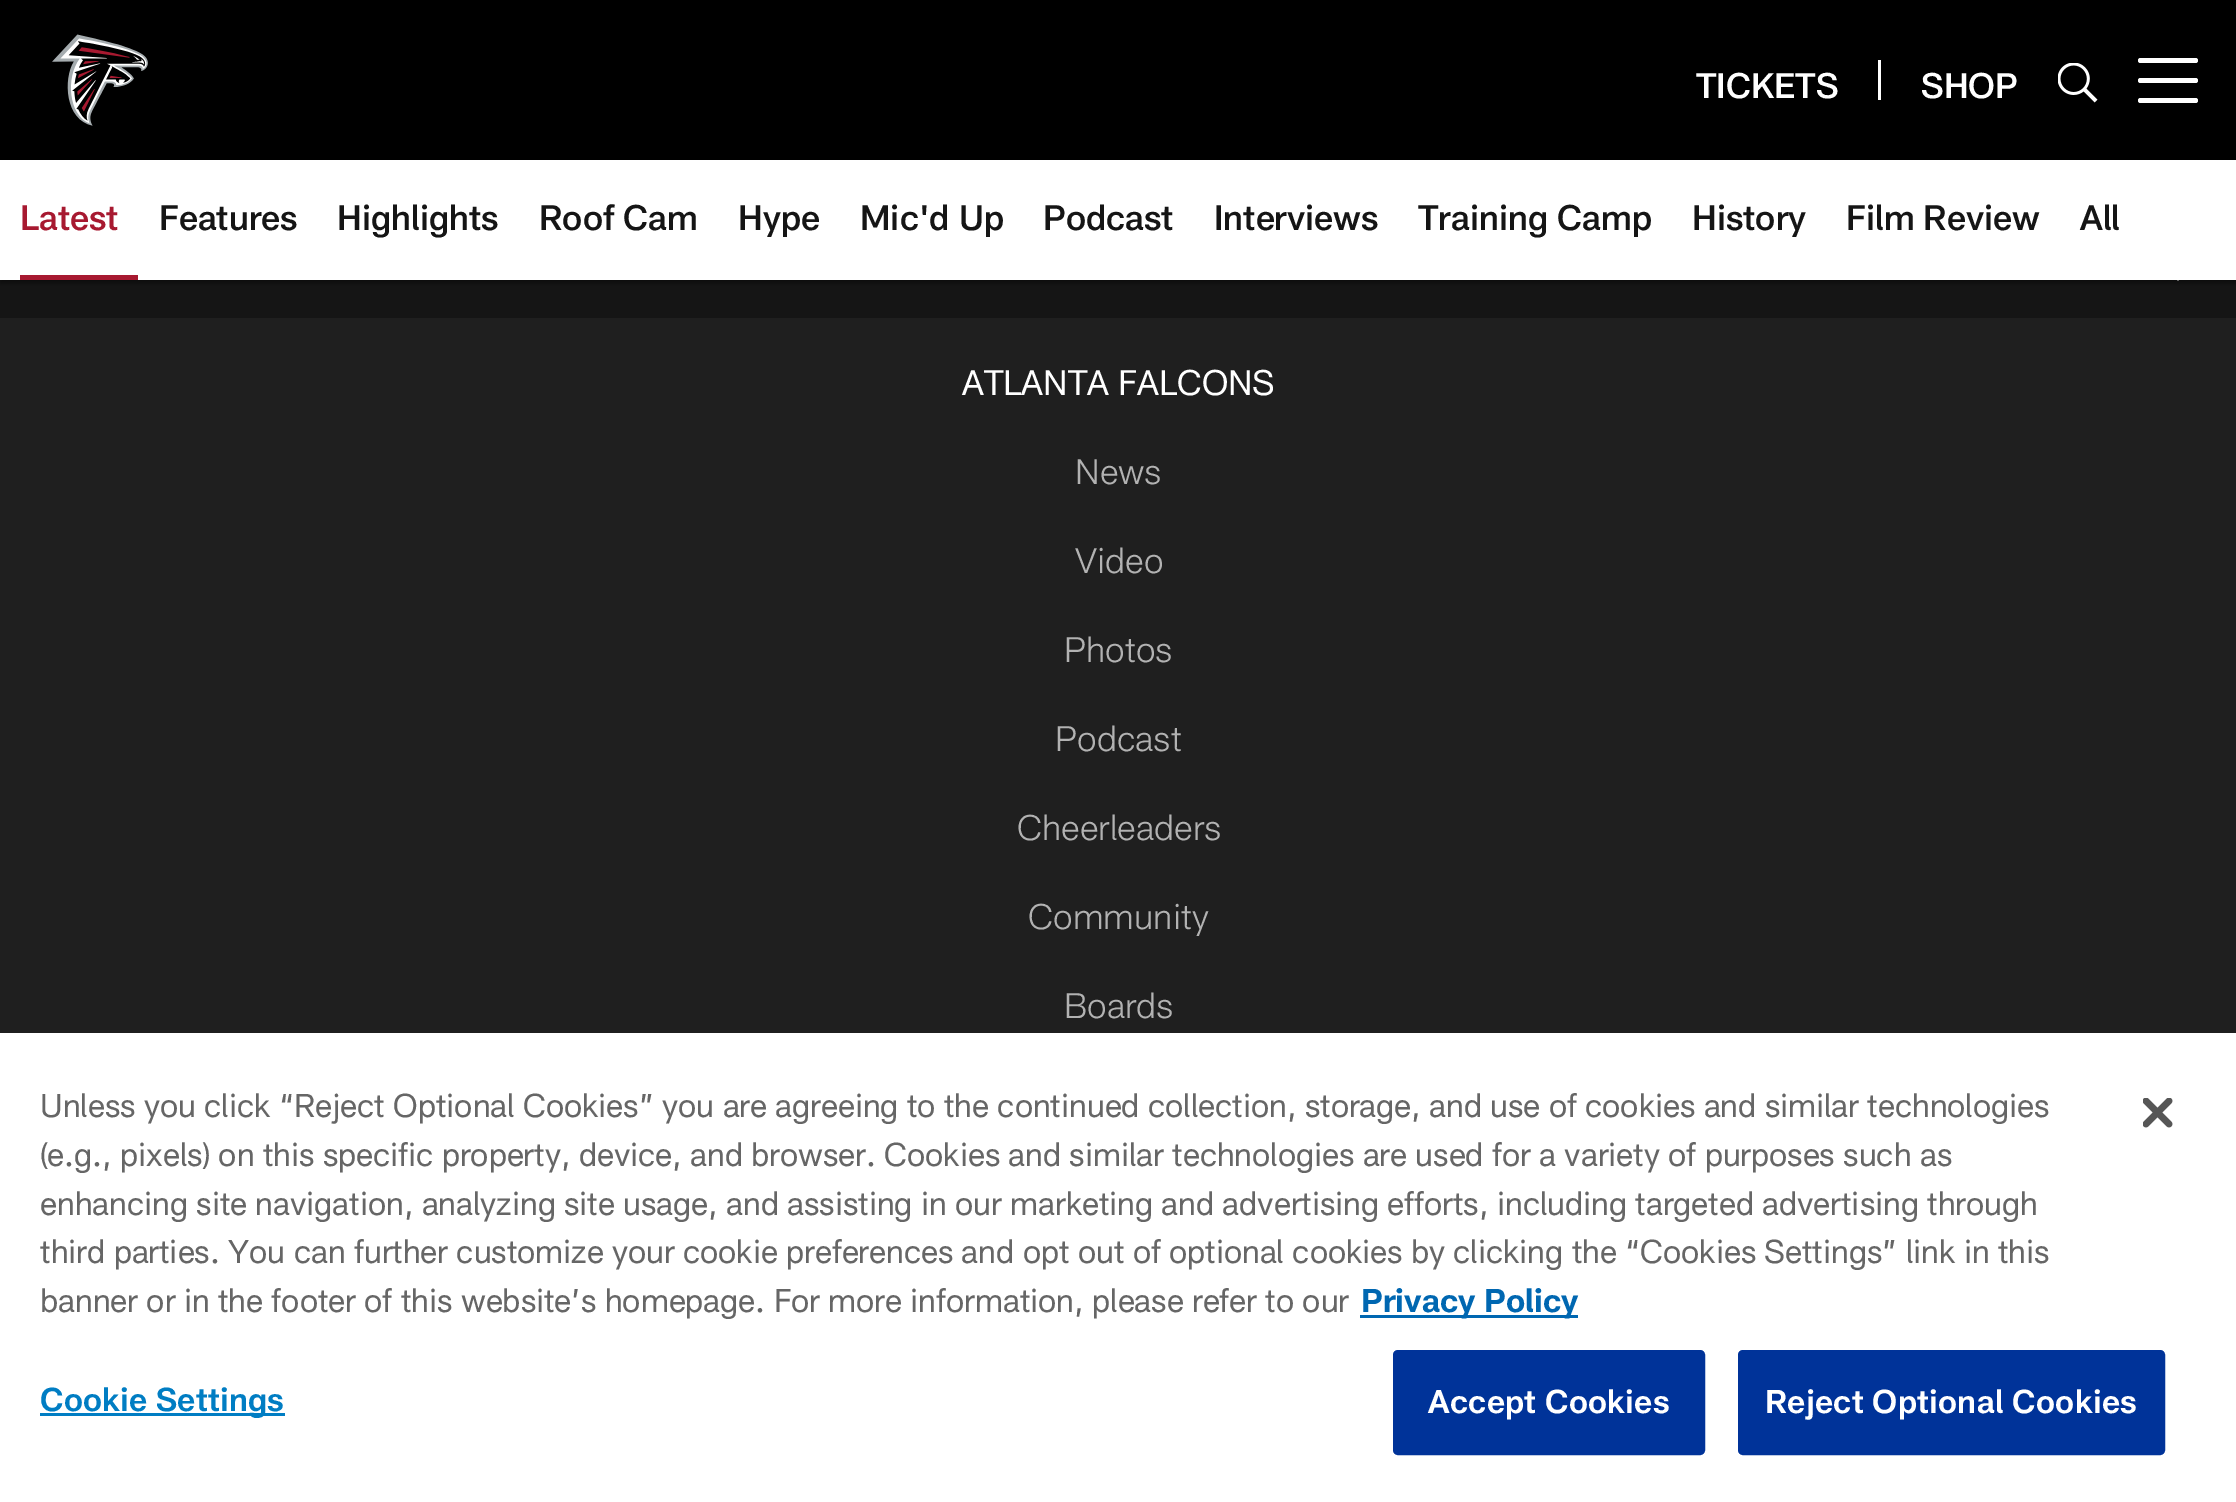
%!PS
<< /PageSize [2236 1502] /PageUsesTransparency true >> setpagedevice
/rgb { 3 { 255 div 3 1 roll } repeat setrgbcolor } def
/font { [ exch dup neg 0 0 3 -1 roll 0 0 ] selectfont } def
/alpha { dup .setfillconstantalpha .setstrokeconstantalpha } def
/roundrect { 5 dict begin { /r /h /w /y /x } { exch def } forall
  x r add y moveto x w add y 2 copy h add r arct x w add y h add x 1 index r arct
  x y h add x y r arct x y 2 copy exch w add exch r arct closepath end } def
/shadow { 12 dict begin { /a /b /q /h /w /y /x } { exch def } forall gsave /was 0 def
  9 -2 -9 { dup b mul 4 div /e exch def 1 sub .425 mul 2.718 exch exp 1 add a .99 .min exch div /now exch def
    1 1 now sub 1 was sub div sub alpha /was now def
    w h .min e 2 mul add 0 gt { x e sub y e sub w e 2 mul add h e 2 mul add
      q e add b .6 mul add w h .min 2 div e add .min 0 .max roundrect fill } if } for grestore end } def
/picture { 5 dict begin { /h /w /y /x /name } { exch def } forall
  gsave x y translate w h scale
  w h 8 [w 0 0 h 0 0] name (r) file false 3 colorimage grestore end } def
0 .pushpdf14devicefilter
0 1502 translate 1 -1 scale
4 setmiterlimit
31 31 31 rgb
0 0 2236 1502 rectfill
0 0 0 rgb
0 0 2236 160 rectfill
(img/1.rgb) 52 34 96 92 picture
255 255 255 rgb
1878 60 3 40 rectfill
(img/2.rgb) 2058 63 40 40 picture
2138 78 60 5 2.5 roundrect fill
2138 58 60 5 2.5 roundrect fill
2138 98 60 5 2.5 roundrect fill
21 21 21 rgb
0 280 2236 38 rectfill
255 255 255 rgb
2178 274 moveto 2194 258 lineto 2198 261 lineto 2178 281 lineto 2158 261 lineto 2161 258 lineto 2163 259 lineto closepath fill
0 0 0 rgb
0 163 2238 120 0 2.5 0.47 shadow
[
  [0 160 2236 120 255 255 255]
  [20 275 118 5 167 25 48]
  [0 1033 2236 469 255 255 255]
  [1360 1315 218 3 0 103 177]
  [40 1413 245 3 0 125 195]
] { aload pop rgb rectfill } forall
0 51 153 rgb
1394.5 1351.5 309 102 3.5 roundrect gsave fill grestore
3 setlinewidth
stroke
1739.5 1351.5 424 102 3.5 roundrect gsave fill grestore
stroke
(img/3.rgb) 2143 1098 30 30 picture
/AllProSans-Medium 35 font
255 255 255 rgb
1696 98 moveto (TICKETS) show
1921 98 moveto (SHOP) show
167 25 48 rgb
20 230 moveto (Latest) show
21 21 21 rgb
[
  [(Features) 159 230]
  [(Highlights) 337 230]
  [(Roof Cam) 539 230]
  [(Hype) 738 230]
  [(Mic'd Up) 860 230]
  [(Podcast) 1043 230]
  [(Interviews) 1214 230]
  [(Training Camp) 1418 230]
  [(History) 1692 230]
  [(Film Review) 1846 230]
  [(All) 2080 230]
] { aload pop moveto show } forall
/AllProSans-Regular 35 font
255 255 255 rgb
962 395 moveto (ATLANTA FALCONS) show
/AllProSans-Light 35 font
178 178 178 rgb
[
  [(News) 1075 484]
  [(Video) 1075 573]
  [(Photos) 1064 662]
  [(Podcast) 1055 751]
  [(Cheerleaders) 1017 840]
  [(Community) 1028 929]
  [(Boards) 1064 1018]
] { aload pop moveto show } forall
/AllProSans-Regular 32.52 font
102 102 102 rgb
[
  [(Unless you click “Reject Optional Cookies” you are agreeing to the continued collection, storage, and use of cookies and similar technologies) 40 1117]
  [(\(e.g., pixels\) on this specific property, device, and browser. Cookies and similar technologies are used for a variety of purposes such as) 40 1166]
  [(enhancing site navigation, analyzing site usage, and assisting in our marketing and advertising efforts, including targeted advertising through) 40 1215]
  [(third parties. You can further customize your cookie preferences and opt out of optional cookies by clicking the “Cookies Settings” link in this) 40 1263]
  [(banner or in the footer of this website’s homepage. For more information, please refer to our) 40 1312]
] { aload pop moveto show } forall
/AllProSans-Bold 32.52 font
0 103 177 rgb
1361 1312 moveto (Privacy Policy) show
/AllProSans-SemiBold 32.52 font
0 125 195 rgb
40 1411 moveto 0.3 0 (Cookie Settings) ashow
255 255 255 rgb
1428 1413 moveto 0.3 0 (Accept Cookies) ashow
1765 1413 moveto 0.3 0 (Reject Optional Cookies) ashow
.poppdf14devicefilter showpage
